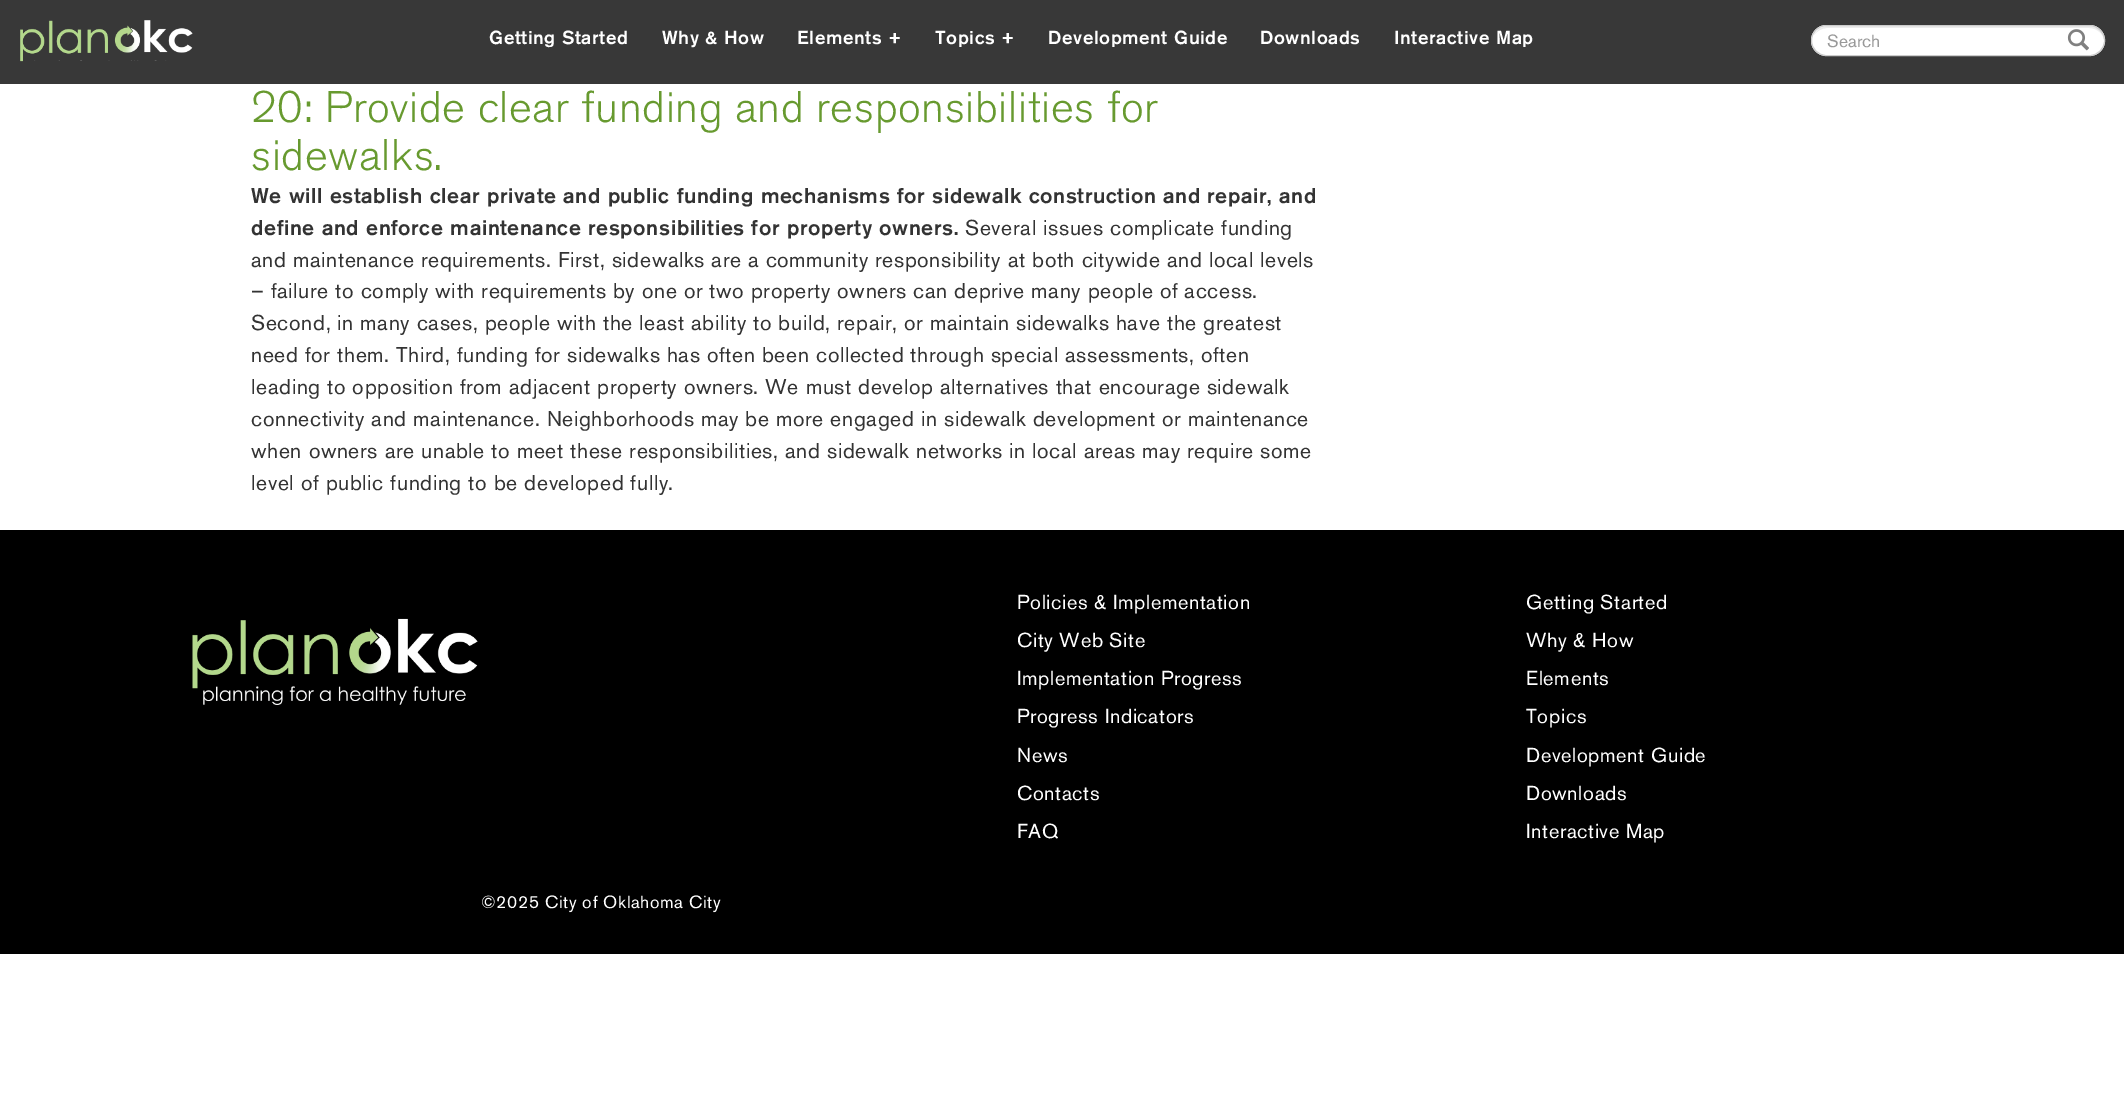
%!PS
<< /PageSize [2124 1102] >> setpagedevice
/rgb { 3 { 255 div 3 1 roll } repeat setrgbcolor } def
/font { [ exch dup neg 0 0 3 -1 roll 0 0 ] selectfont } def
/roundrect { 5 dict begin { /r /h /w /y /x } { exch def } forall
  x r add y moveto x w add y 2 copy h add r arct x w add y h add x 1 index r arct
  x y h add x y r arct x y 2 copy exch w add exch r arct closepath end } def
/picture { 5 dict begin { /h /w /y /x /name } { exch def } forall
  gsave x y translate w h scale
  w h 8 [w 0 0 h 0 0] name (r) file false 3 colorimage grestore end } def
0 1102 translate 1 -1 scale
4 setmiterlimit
255 255 255 rgb
0 0 2124 1102 rectfill
56 56 56 rgb
0 0 2124 84 rectfill
(img/1.rgb) 20 20 173 42 picture
255 255 255 rgb
1811 25 294 31 15.5 roundrect fill
236 236 236 rgb
1827 28 moveto 2089 28 lineto 2097 28 2104 34 2104 41 curveto 2104 40 lineto 2104 32 2098 26 2090 26 curveto 1828 26 lineto 1822 26 1817 30 1814 35 curveto 1817 31 1822 28 1827 28 curveto closepath fill
204 204 204 rgb
1811.5 25.5 293 30 15 roundrect stroke
(img/2.rgb) 2067 29 22 22 picture
0 0 0 rgb
0 530 2124 424 rectfill
(img/3.rgb) 192 618 286 87 picture
/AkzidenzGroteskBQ-Medium 18.75 font
255 255 255 rgb
489 44 moveto 0.62 0 (Getting Started) ashow
662 44 moveto 0.62 0 (Why & How) ashow
797 44 moveto 0.62 0 (Elements +) ashow
935 44 moveto 0.62 0 (Topics +) ashow
1048 44 moveto 0.62 0 (Development Guide) ashow
1260 44 moveto 0.62 0 (Downloads) ashow
1394 44 moveto 0.62 0 (Interactive Map) ashow
/AkzidenzGroteskBQ-Regular 17.5 font
153 153 153 rgb
1827 47 moveto (Search) show
/AkzidenzGroteskBQ-Light 43.75 font
103 154 47 rgb
251 122 moveto 0.62 0 (20: Provide clear funding and responsibilities for) ashow
251 170 moveto 0.62 0 (sidewalks.) ashow
/AkzidenzGroteskBQ-Medium 21.25 font
51 51 51 rgb
251 203 moveto 0.62 0 (We will establish clear private and public funding mechanisms for sidewalk construction and repair, and) ashow
251 235 moveto 0.62 0 (define and enforce maintenance responsibilities for property owners.) ashow
/AkzidenzGroteskBQ-Regular 21.25 font
965 235 moveto 0.62 0 (Several issues complicate funding) ashow
251 267 moveto 0.62 0 (and maintenance requirements. First, sidewalks are a community responsibility at both citywide and local levels) ashow
251 298 moveto 0.62 0 (– failure to comply with requirements by one or two property owners can deprive many people of access.) ashow
251 330 moveto 0.62 0 (Second, in many cases, people with the least ability to build, repair, or maintain sidewalks have the greatest) ashow
251 362 moveto 0.62 0 (need for them. Third, funding for sidewalks has often been collected through special assessments, often) ashow
251 394 moveto 0.62 0 (leading to opposition from adjacent property owners. We must develop alternatives that encourage sidewalk) ashow
251 426 moveto 0.62 0 (connectivity and maintenance. Neighborhoods may be more engaged in sidewalk development or maintenance) ashow
251 458 moveto 0.62 0 (when owners are unable to meet these responsibilities, and sidewalk networks in local areas may require some) ashow
251 490 moveto 0.62 0 (level of public funding to be developed fully.) ashow
/AkzidenzGroteskBQ-Regular 20 font
255 255 255 rgb
1017 609 moveto 0.62 0 (Policies & Implementation) ashow
1017 647 moveto 0.62 0 (City Web Site) ashow
1017 685 moveto 0.62 0 (Implementation Progress) ashow
1017 723 moveto 0.62 0 (Progress Indicators) ashow
1017 762 moveto 0.62 0 (News) ashow
1017 800 moveto 0.62 0 (Contacts) ashow
1017 838 moveto 0.62 0 (FAQ) ashow
1526 609 moveto 0.62 0 (Getting Started) ashow
1526 647 moveto 0.62 0 (Why & How) ashow
1526 685 moveto 0.62 0 (Elements) ashow
1526 723 moveto 0.62 0 (Topics) ashow
1526 762 moveto 0.62 0 (Development Guide) ashow
1526 800 moveto 0.62 0 (Downloads) ashow
1526 838 moveto 0.62 0 (Interactive Map) ashow
/AkzidenzGroteskBQ-Regular 17.5 font
481 908 moveto 0.62 0 (©2025 City of Oklahoma City) ashow
showpage
